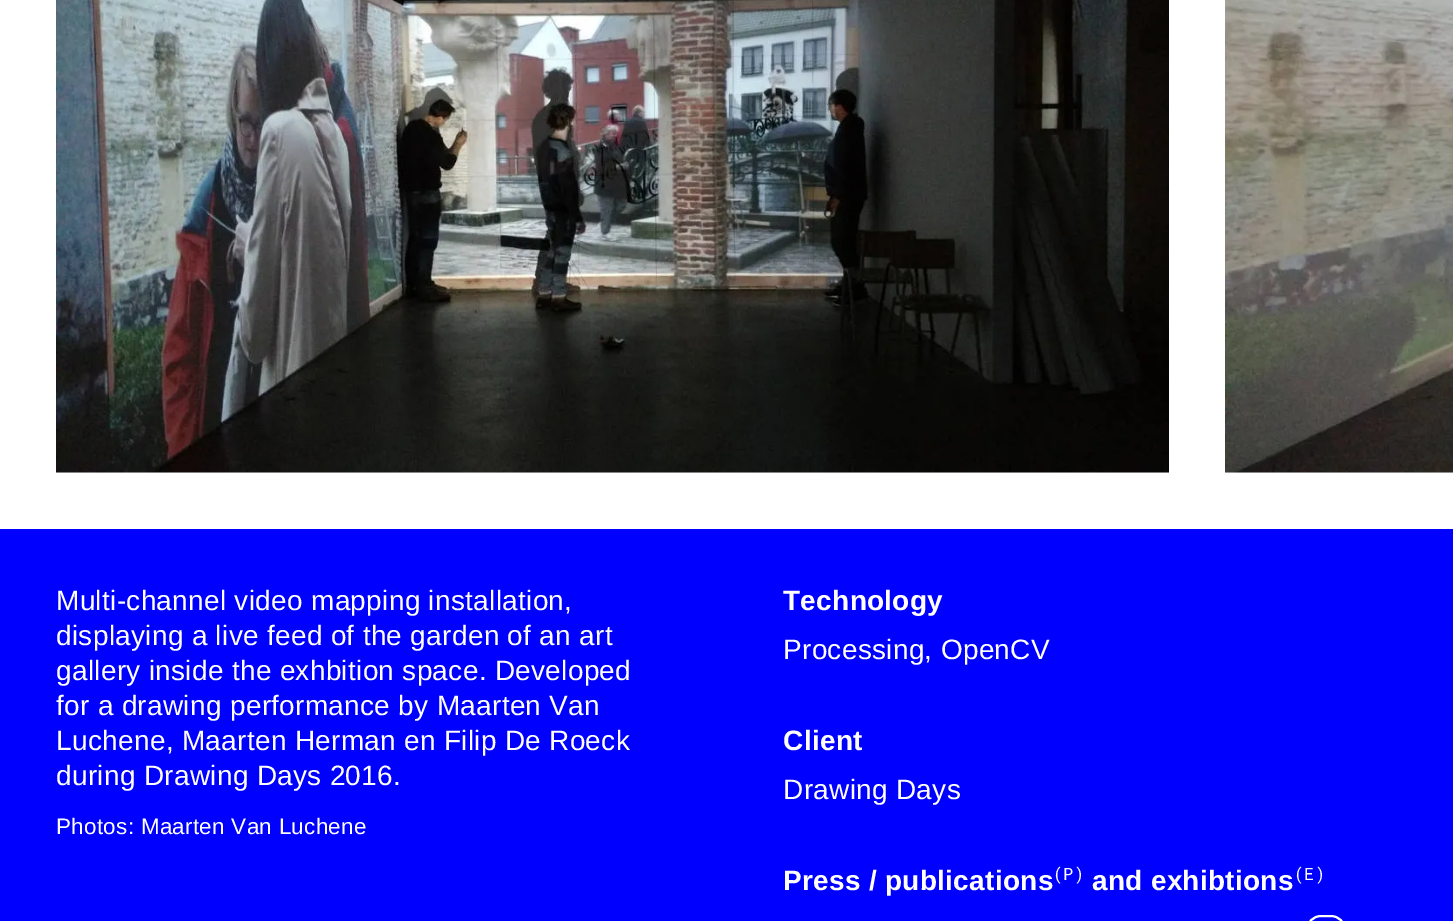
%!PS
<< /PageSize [1453 921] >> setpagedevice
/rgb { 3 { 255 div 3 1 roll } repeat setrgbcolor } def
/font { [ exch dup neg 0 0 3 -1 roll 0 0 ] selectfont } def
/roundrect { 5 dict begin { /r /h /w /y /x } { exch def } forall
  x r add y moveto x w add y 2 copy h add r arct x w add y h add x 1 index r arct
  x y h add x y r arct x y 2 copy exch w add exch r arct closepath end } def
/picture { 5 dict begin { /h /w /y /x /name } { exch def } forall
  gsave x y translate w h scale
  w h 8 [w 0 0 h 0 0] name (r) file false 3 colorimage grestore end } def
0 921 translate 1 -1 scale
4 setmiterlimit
255 255 255 rgb
0 0 1453 921 rectfill
245 245 245 rgb
56 472 1113 1 rectfill
(img/1.rgb) 56 0 1113 473 picture
1225 472 228 1 rectfill
(img/2.rgb) 1225 0 228 473 picture
0 0 255 rgb
0 529 1453 392 rectfill
255 255 255 rgb
2 setlinewidth
1307 916 38 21 14 roundrect stroke
/LiberationSans-Regular 28 font
56 610 moveto 0.3 0 (Multi-channel video mapping installation,) ashow
56 645 moveto 0.3 0 (displaying a live feed of the garden of an art) ashow
56 680 moveto 0.3 0 (gallery inside the exhbition space. Developed) ashow
56 715 moveto 0.3 0 (for a drawing performance by Maarten Van) ashow
56 750 moveto 0.3 0 (Luchene, Maarten Herman en Filip De Roeck) ashow
56 785 moveto 0.3 0 (during Drawing Days 2016.) ashow
/LiberationSans-Regular 22.4 font
56 834 moveto 0.3 0 (Photos: Maarten Van Luchene) ashow
/LiberationSans-Bold 28 font
783 610 moveto 0.3 0 (Technology) ashow
/LiberationSans-Regular 28 font
783 659 moveto 0.3 0 (Processing, OpenCV) ashow
/LiberationSans-Bold 28 font
783 750 moveto 0.3 0 (Client) ashow
/LiberationSans-Regular 28 font
783 799 moveto 0.3 0 (Drawing Days) ashow
/LiberationSans-Bold 28 font
783 890 moveto 0.3 0 (Press / publications) ashow
/RobotoMono-Regular 17 font
1053 880 moveto 0.3 0 (\(P\)) ashow
/LiberationSans-Bold 28 font
1092 890 moveto 0.3 0 (and exhibtions) ashow
/RobotoMono-Regular 17 font
1294 880 moveto 0.3 0 (\(E\)) ashow
showpage
